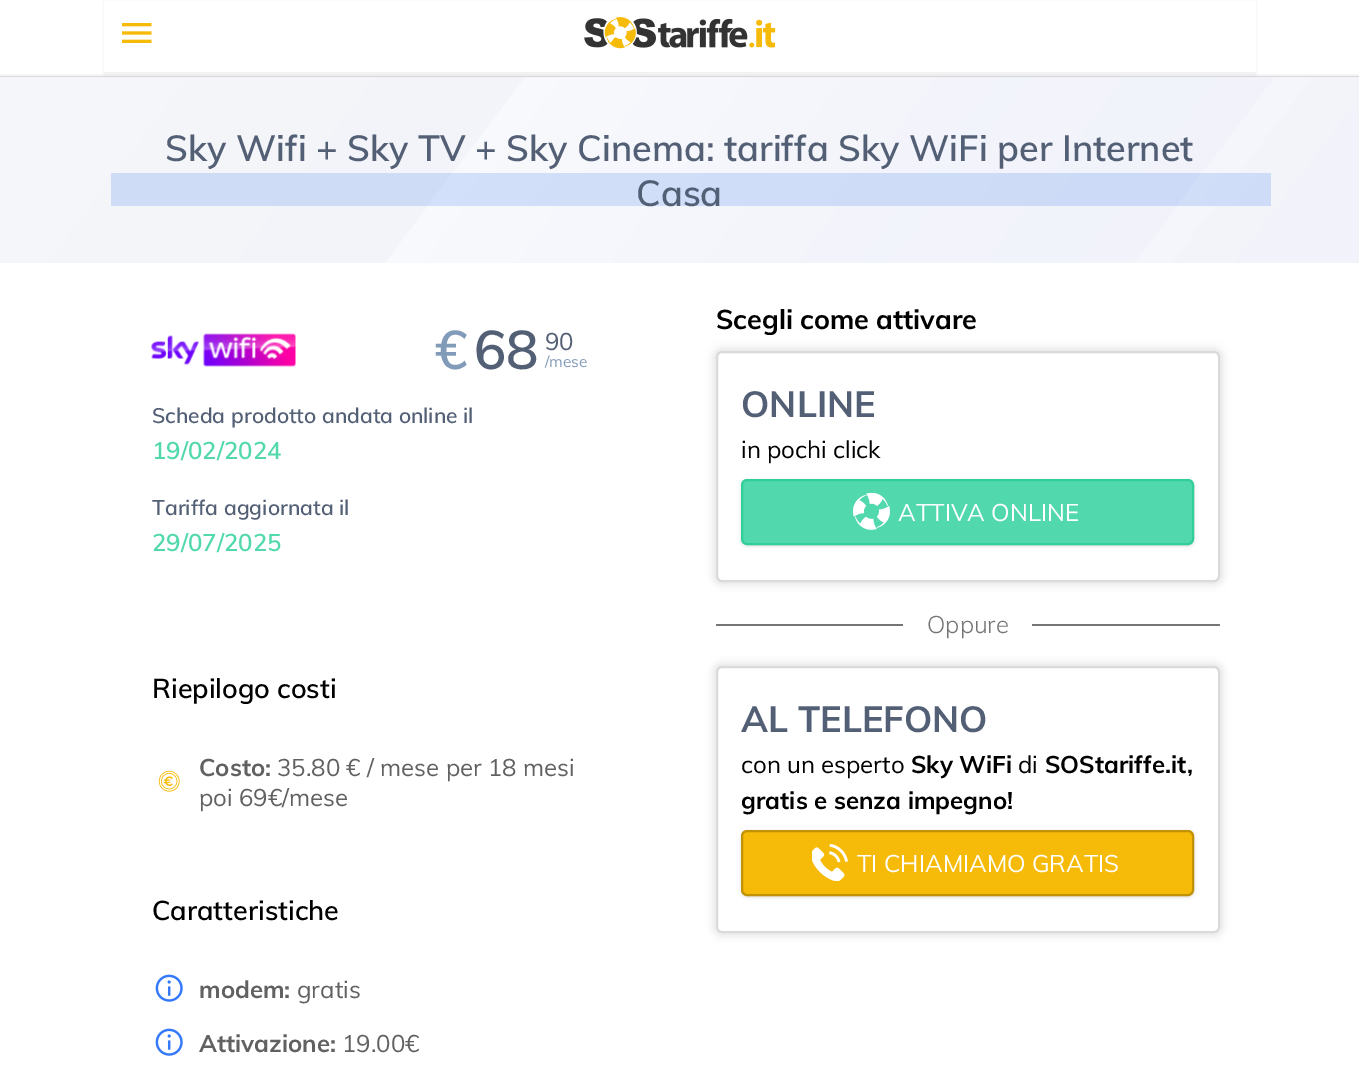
%!PS
<< /PageSize [1359 1066] /PageUsesTransparency true >> setpagedevice
/rgb { 3 { 255 div 3 1 roll } repeat setrgbcolor } def
/font { [ exch dup neg 0 0 3 -1 roll 0 0 ] selectfont } def
/alpha { dup .setfillconstantalpha .setstrokeconstantalpha } def
/roundrect { 5 dict begin { /r /h /w /y /x } { exch def } forall
  x r add y moveto x w add y 2 copy h add r arct x w add y h add x 1 index r arct
  x y h add x y r arct x y 2 copy exch w add exch r arct closepath end } def
/shadow { 12 dict begin { /a /b /q /h /w /y /x } { exch def } forall gsave /was 0 def
  9 -2 -9 { dup b mul 4 div /e exch def 1 sub .425 mul 2.718 exch exp 1 add a .99 .min exch div /now exch def
    1 1 now sub 1 was sub div sub alpha /was now def
    w h .min e 2 mul add 0 gt { x e sub y e sub w e 2 mul add h e 2 mul add
      q e add b .6 mul add w h .min 2 div e add .min 0 .max roundrect fill } if } for grestore end } def
/picture { 5 dict begin { /h /w /y /x /name } { exch def } forall
  gsave x y translate w h scale
  w h 8 [w 0 0 h 0 0] name (r) file false 3 colorimage grestore end } def
0 .pushpdf14devicefilter
0 1066 translate 1 -1 scale
4 setmiterlimit
255 255 255 rgb
0 0 1359 1066 rectfill
218 218 218 rgb
0 76 1359 1 rectfill
245 245 245 rgb
0 74 1359 2 rectfill
gsave 0 77 moveto 1359 77 lineto 1359 263 lineto 0 263 lineto closepath clip newpath
<< /ShadingType 2 /ColorSpace /DeviceRGB /Coords [201 -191 1158 530] /Extend [true true] /Function << /FunctionType 3 /Domain [0 1] /Functions [<< /FunctionType 2 /Domain [0 1] /C0 [0.965 0.969 0.98] /C1 [0.949 0.957 0.976] /N 1 >> << /FunctionType 2 /Domain [0 1] /C0 [0.969 0.976 0.992] /C1 [0.945 0.949 0.98] /N 1 >> << /FunctionType 2 /Domain [0 1] /C0 [0.961 0.965 0.984] /C1 [0.945 0.949 0.98] /N 1 >>] /Bounds [0.35 0.85] /Encode [0 1 0 1 0 1] >> >> shfill grestore
0 0 0 rgb
104 2 1152 73 0 1.5 0.05 shadow
255 255 255 rgb
104 1 1152 71 rectfill
245 245 245 rgb
104 73 1152 1 rectfill
(img/1.rgb) 122 23 30 20 picture
(img/2.rgb) 584 17 192 32 picture
gsave 111 173 moveto 1271 173 lineto 1271 206 lineto 111 206 lineto closepath clip newpath
<< /ShadingType 2 /ColorSpace /DeviceRGB /Coords [201 -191 1158 530] /Extend [true true] /Function << /FunctionType 3 /Domain [0 1] /Functions [<< /FunctionType 2 /Domain [0 1] /C0 [0.82 0.871 0.969] /C1 [0.808 0.863 0.965] /N 1 >> << /FunctionType 2 /Domain [0 1] /C0 [0.824 0.878 0.976] /C1 [0.804 0.855 0.969] /N 1 >> << /FunctionType 2 /Domain [0 1] /C0 [0.816 0.871 0.973] /C1 [0.804 0.855 0.969] /N 1 >>] /Bounds [0.35 0.85] /Encode [0 1 0 1 0 1] >> >> shfill grestore
(img/3.rgb) 151 333 145 34 picture
(img/4.rgb) 158 770 22 22 picture
(img/5.rgb) 155 974 28 28 picture
(img/5.rgb) 155 1028 28 28 picture
0 0 0 rgb
713 348 510 237 9 4 0.1 shadow
255 255 255 rgb
717 352 502 229 5 roundrect gsave fill grestore
218 218 218 rgb
2 setlinewidth
stroke
0 0 0 rgb
743 482 450 63 5 1.5 0.1 shadow
741 480 453 66 6 2 0.1 shadow
82 216 173 rgb
742 480 451 64 5 roundrect gsave fill grestore
47 206 155 rgb
stroke
(img/6.rgb) 853 493 37 37 picture
117 117 117 rgb
716 624 187 2 rectfill
1032 624 188 2 rectfill
0 0 0 rgb
713 663 510 273 9 4 0.1 shadow
255 255 255 rgb
717 667 502 265 5 roundrect gsave fill grestore
218 218 218 rgb
stroke
0 0 0 rgb
743 833 450 63 5 1.5 0.1 shadow
741 831 453 66 6 2 0.1 shadow
246 186 8 rgb
742 831 451 64 5 roundrect gsave fill grestore
194 146 6 rgb
stroke
(img/7.rgb) 812 844 36 37 picture
/Muli-SemiBold 36 font
82 95 117 rgb
165 161 moveto (Sky Wifi + Sky TV + Sky Cinema: tariffa Sky WiFi per Internet) show
636 206 moveto (Casa) show
/Muli-SemiBold 54 font
130 155 184 rgb
435 369 moveto (€) show
82 95 117 rgb
474 369 moveto (68) show
/Muli-Regular 24 font
545 350 moveto (90) show
/Muli-Regular 15.5 font
130 155 184 rgb
545 367 moveto (/mese) show
/Muli-SemiBold 21 font
82 95 117 rgb
152 423 moveto (Scheda prodotto andata online il) show
/Muli-SemiBold 24 font
82 216 173 rgb
152 459 moveto (19/02/2024) show
/Muli-SemiBold 21 font
82 95 117 rgb
152 515 moveto (Tariffa aggiornata il) show
/Muli-SemiBold 24 font
82 216 173 rgb
152 551 moveto (29/07/2025) show
/Muli-SemiBold 27 font
0 0 0 rgb
152 698 moveto (Riepilogo costi) show
/Muli-Bold 24 font
97 97 97 rgb
199 776 moveto (Costo:) show
/Muli-Regular 24 font
277 776 moveto (35.80 € / mese per 18 mesi) show
199 806 moveto (poi 69€/mese) show
/Muli-SemiBold 27 font
0 0 0 rgb
152 920 moveto (Caratteristiche) show
/Muli-Bold 24 font
97 97 97 rgb
199 998 moveto (modem:) show
/Muli-Regular 24 font
297 998 moveto (gratis) show
/Muli-Bold 24 font
199 1052 moveto (Attivazione:) show
/Muli-Regular 24 font
342 1052 moveto (19.00€) show
/Muli-Bold 27 font
0 0 0 rgb
716 329 moveto (Scegli come attivare) show
/Muli-Bold 36 font
82 95 117 rgb
741 417 moveto (ONLINE) show
/Muli-Regular 24 font
0 0 0 rgb
741 458 moveto (in pochi click) show
255 255 255 rgb
898 521 moveto (ATTIVA ONLINE) show
/Muli-Light 24 font
117 117 117 rgb
927 633 moveto (Oppure) show
/Muli-Bold 36 font
82 95 117 rgb
741 732 moveto (AL TELEFONO) show
/Muli-Regular 24 font
0 0 0 rgb
741 773 moveto (con un esperto) show
/Muli-Bold 24 font
911 773 moveto (Sky WiFi) show
/Muli-Regular 24 font
1018 773 moveto (di) show
/Muli-Bold 24 font
1045 773 moveto (SOStariffe.it,) show
741 809 moveto (gratis e senza impegno!) show
/Muli-Regular 24 font
255 255 255 rgb
857 872 moveto (TI CHIAMIAMO GRATIS) show
.poppdf14devicefilter showpage
